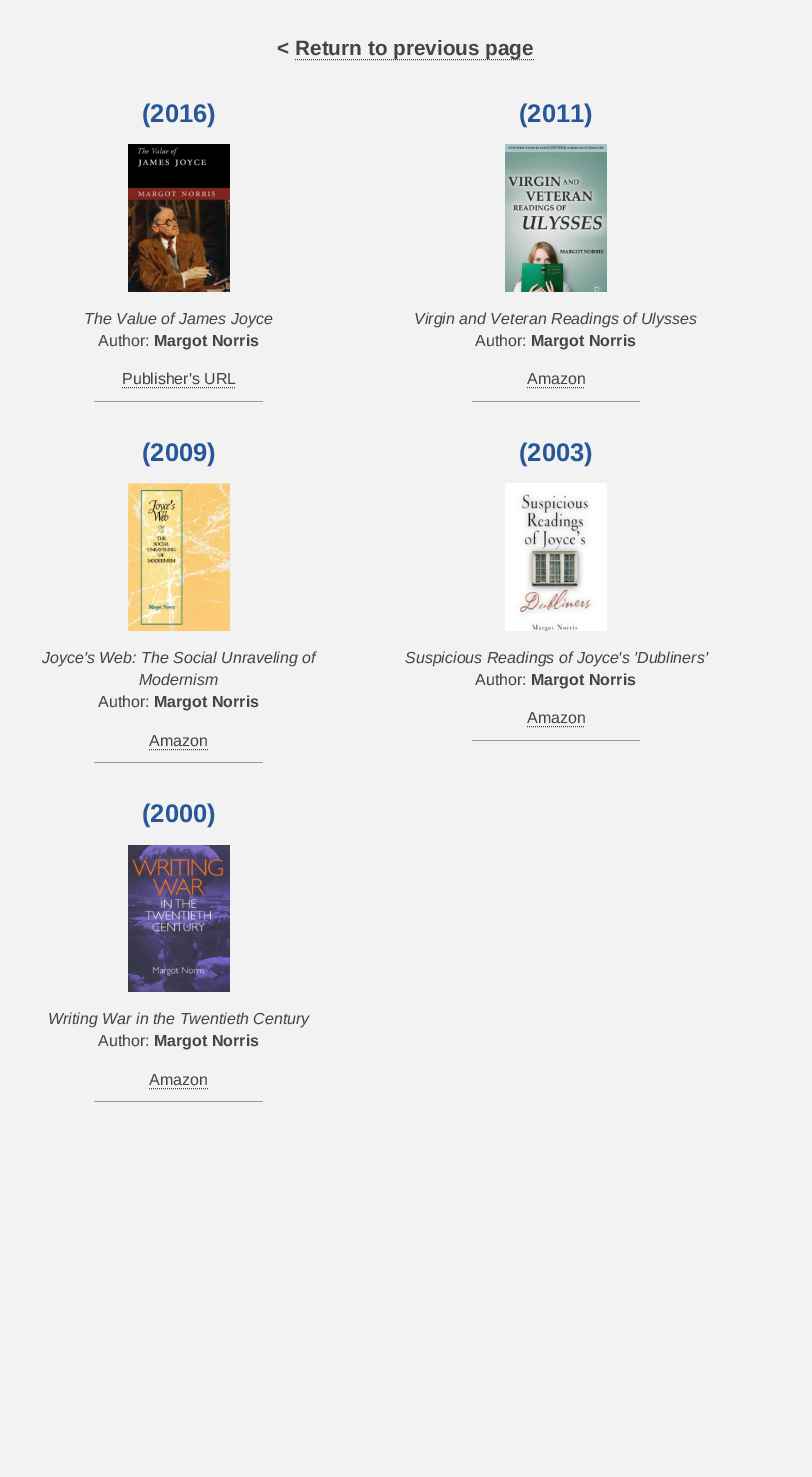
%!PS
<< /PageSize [812 1477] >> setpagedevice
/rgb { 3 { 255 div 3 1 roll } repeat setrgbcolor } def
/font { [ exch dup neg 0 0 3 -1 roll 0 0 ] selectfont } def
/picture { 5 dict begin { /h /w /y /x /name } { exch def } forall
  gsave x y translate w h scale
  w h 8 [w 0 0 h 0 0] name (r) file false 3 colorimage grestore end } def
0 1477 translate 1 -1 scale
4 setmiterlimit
242 242 242 rgb
0 0 812 1477 rectfill
68 68 68 rgb
[1 1] 0 setdash
295 59.5 moveto 535 59.5 lineto stroke
(img/1.rgb) 128 144 102 148 picture
122 387.5 moveto 236 387.5 lineto stroke
153 153 153 rgb
94 401 169 1 rectfill
(img/2.rgb) 505 144 102 148 picture
68 68 68 rgb
527 387.5 moveto 585 387.5 lineto stroke
153 153 153 rgb
472 401 168 1 rectfill
(img/3.rgb) 128 483 102 148 picture
68 68 68 rgb
149 749.5 moveto 208 749.5 lineto stroke
153 153 153 rgb
94 762 169 1 rectfill
(img/4.rgb) 505 483 102 148 picture
68 68 68 rgb
527 726.5 moveto 585 726.5 lineto stroke
153 153 153 rgb
472 740 168 1 rectfill
(img/5.rgb) 128 845 102 147 picture
68 68 68 rgb
149 1088.5 moveto 208 1088.5 lineto stroke
153 153 153 rgb
94 1101 169 1 rectfill
/LiberationSans-Bold 20.75 font
68 68 68 rgb
277 55 moveto (<) show
295 55 moveto (Return to previous page) show
/LiberationSans-Bold 25.5 font
39 87 153 rgb
142 122 moveto (\(2016\)) show
/LiberationSans-Italic 16 font
68 68 68 rgb
84 324 moveto (The Value of James Joyce) show
/LiberationSans-Regular 16 font
98 346 moveto (Author:) show
/LiberationSans-Bold 16 font
154 346 moveto (Margot Norris) show
/LiberationSans-Regular 16 font
122 384 moveto (Publisher's URL) show
/LiberationSans-Bold 25.5 font
39 87 153 rgb
519 122 moveto (\(2011\)) show
/LiberationSans-Italic 16 font
68 68 68 rgb
414 324 moveto (Virgin and Veteran Readings of Ulysses) show
/LiberationSans-Regular 16 font
475 346 moveto (Author:) show
/LiberationSans-Bold 16 font
531 346 moveto (Margot Norris) show
/LiberationSans-Regular 16 font
527 384 moveto (Amazon) show
/LiberationSans-Bold 25.5 font
39 87 153 rgb
142 461 moveto (\(2009\)) show
/LiberationSans-Italic 16 font
68 68 68 rgb
42 663 moveto (Joyce's Web: The Social Unraveling of) show
139 685 moveto (Modernism) show
/LiberationSans-Regular 16 font
98 707 moveto (Author:) show
/LiberationSans-Bold 16 font
154 707 moveto (Margot Norris) show
/LiberationSans-Regular 16 font
149 746 moveto (Amazon) show
/LiberationSans-Bold 25.5 font
39 87 153 rgb
519 461 moveto (\(2003\)) show
/LiberationSans-Italic 16 font
68 68 68 rgb
405 663 moveto (Suspicious Readings of Joyce's 'Dubliners') show
/LiberationSans-Regular 16 font
475 685 moveto (Author:) show
/LiberationSans-Bold 16 font
531 685 moveto (Margot Norris) show
/LiberationSans-Regular 16 font
527 723 moveto (Amazon) show
/LiberationSans-Bold 25.5 font
39 87 153 rgb
142 822 moveto (\(2000\)) show
/LiberationSans-Italic 16 font
68 68 68 rgb
48 1024 moveto (Writing War in the Twentieth Century) show
/LiberationSans-Regular 16 font
98 1046 moveto (Author:) show
/LiberationSans-Bold 16 font
154 1046 moveto (Margot Norris) show
/LiberationSans-Regular 16 font
149 1085 moveto (Amazon) show
showpage
